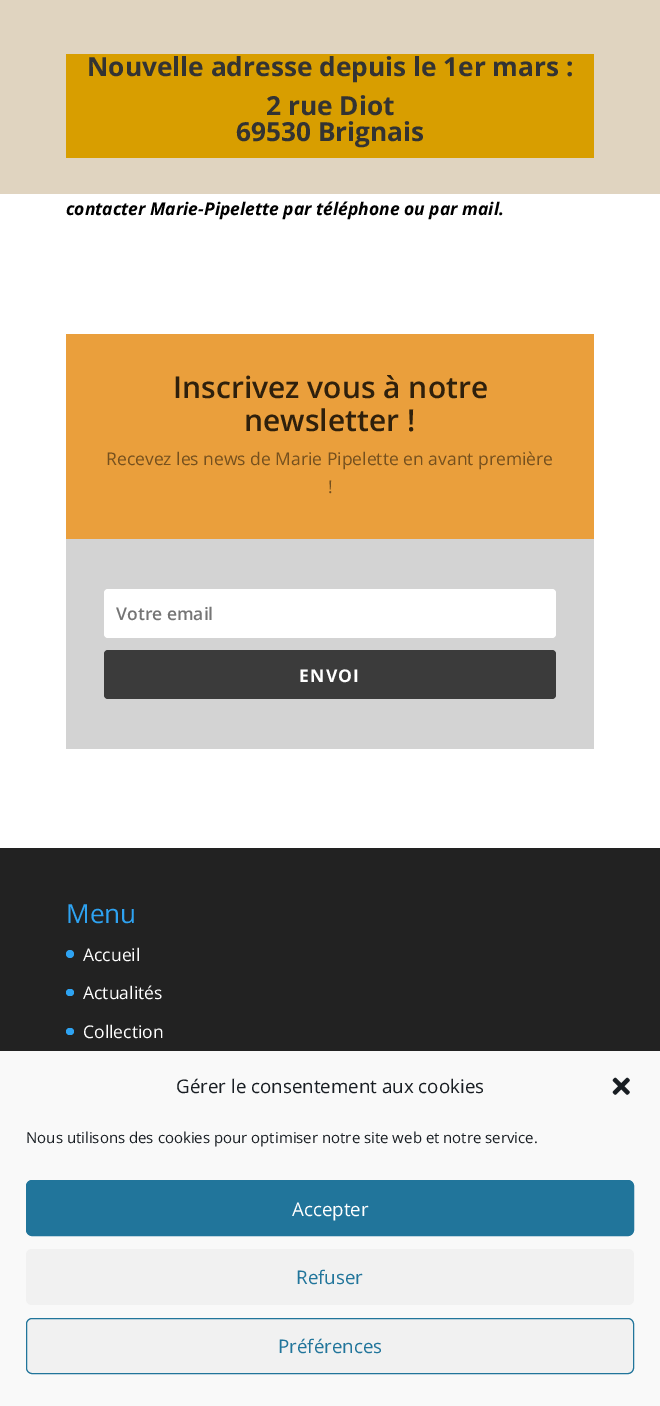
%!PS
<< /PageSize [660 1406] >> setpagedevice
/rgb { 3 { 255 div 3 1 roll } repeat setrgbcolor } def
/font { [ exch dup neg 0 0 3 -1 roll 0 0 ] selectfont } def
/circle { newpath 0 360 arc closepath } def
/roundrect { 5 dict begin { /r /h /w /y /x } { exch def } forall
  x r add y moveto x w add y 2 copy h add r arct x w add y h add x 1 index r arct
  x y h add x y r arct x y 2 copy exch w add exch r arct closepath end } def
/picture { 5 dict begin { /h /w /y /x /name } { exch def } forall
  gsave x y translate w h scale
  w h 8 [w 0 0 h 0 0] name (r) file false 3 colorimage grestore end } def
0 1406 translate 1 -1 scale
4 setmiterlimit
255 255 255 rgb
0 0 660 1406 rectfill
[
  [0 0 660 194 224 212 192]
  [66 54 528 104 216 158 0]
  [66 334 528 205 234 159 60]
  [66 539 528 210 211 211 211]
] { aload pop rgb rectfill } forall
255 255 255 rgb
104 589 452 49 4 roundrect fill
59 59 59 rgb
104 650 452 49 4 roundrect fill
34 34 34 rgb
0 848 660 203 rectfill
46 163 242 rgb
70 954 4 circle fill
66 989 8 7 3.5 roundrect fill
66 1028 8 7 3.5 roundrect fill
249 249 249 rgb
0 1051 660 355 rectfill
(img/1.rgb) 612 1077 18 18 picture
33 117 155 rgb
26.5 1180.5 607 55 5.5 roundrect gsave fill grestore
stroke
241 241 241 rgb
26 1249 608 56 6 roundrect fill
26.5 1318.5 607 55 5.5 roundrect gsave fill grestore
33 117 155 rgb
stroke
/OpenSans-Bold 26.25 font
51 51 51 rgb
[
  [(Nouvelle adresse depuis le 1er mars :) 87 76]
  [(2 rue Diot) 266 115]
  [(69530 Brignais) 236 141]
] { aload pop moveto show } forall
/OpenSans-BoldItalic 17.5 font
0 0 0 rgb
66 215 moveto (contacter Marie-Pipelette par téléphone ou par mail.) show
/OpenSans-SemiBold 30 font
47 32 12 rgb
173 398 moveto (Inscrivez vous à notre) show
244 431 moveto (newsletter !) show
/OpenSans-Regular 17.5 font
117 80 30 rgb
106 465 moveto (Recevez les news de Marie Pipelette en avant première) show
328 493 moveto (!) show
/OpenSans-SemiBold 17.5 font
117 117 117 rgb
116 620 moveto (Votre email) show
/OpenSans-Bold 17.5 font
255 255 255 rgb
299 682 moveto 1.25 0 (ENVOI) ashow
/OpenSans-Regular 26.25 font
46 163 242 rgb
66 923 moveto (Menu) show
/OpenSans-Regular 17.5 font
255 255 255 rgb
[
  [(Accueil) 83 961]
  [(Actualités) 83 999]
  [(Collection) 83 1038]
] { aload pop moveto show } forall
/OpenSans-Regular 18.75 font
25 30 35 rgb
176 1093 moveto (Gérer le consentement aux cookies) show
/OpenSans-Regular 15 font
26 1143 moveto (Nous utilisons des cookies pour optimiser notre site web et notre service.) show
/OpenSans-Regular 18.75 font
255 255 255 rgb
292 1216 moveto (Accepter) show
33 117 155 rgb
296 1284 moveto (Refuser) show
278 1353 moveto (Préférences) show
showpage
